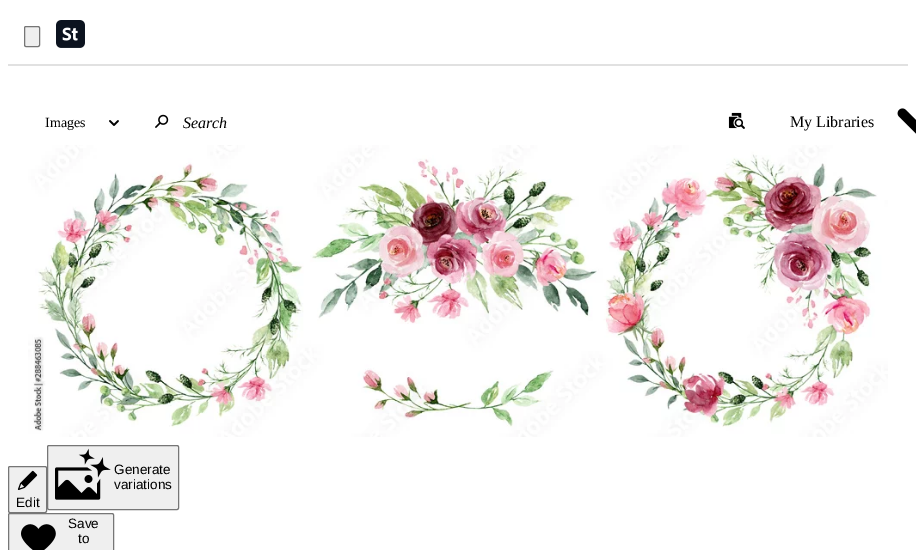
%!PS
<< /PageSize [916 550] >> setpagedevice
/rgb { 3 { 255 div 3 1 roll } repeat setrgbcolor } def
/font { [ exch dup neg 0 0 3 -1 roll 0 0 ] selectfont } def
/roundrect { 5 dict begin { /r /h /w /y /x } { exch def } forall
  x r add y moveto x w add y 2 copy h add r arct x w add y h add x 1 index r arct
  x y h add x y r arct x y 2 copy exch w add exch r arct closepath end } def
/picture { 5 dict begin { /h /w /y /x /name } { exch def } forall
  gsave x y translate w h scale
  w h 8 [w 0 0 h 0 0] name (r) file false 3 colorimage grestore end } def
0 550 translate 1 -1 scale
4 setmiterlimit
255 255 255 rgb
0 0 916 550 rectfill
225 225 225 rgb
8 64 900 2 rectfill
239 239 239 rgb
24.5 26.5 15 20 1.5 roundrect gsave fill grestore
118 118 118 rgb
stroke
(img/1.rgb) 56 20 29 28 picture
(img/2.rgb) 109 120 10 6 picture
(img/3.rgb) 155 114 14 14 picture
(img/4.rgb) 728 112 17 17 picture
(img/5.rgb) 897 108 19 26 picture
(img/6.rgb) 28 145 860 292 picture
239 239 239 rgb
47.5 445.5 131 64 1.5 roundrect gsave fill grestore
118 118 118 rgb
stroke
(img/7.rgb) 55 448 56 52 picture
239 239 239 rgb
8.5 466.5 38 46 1.5 roundrect gsave fill grestore
118 118 118 rgb
stroke
(img/8.rgb) 17 470 21 20 picture
239 239 239 rgb
8.5 513.5 105 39 1.5 roundrect gsave fill grestore
118 118 118 rgb
stroke
(img/9.rgb) 21 524 35 26 picture
/LiberationSerif-Regular 14 font
0 0 0 rgb
45 127 moveto (Images) show
/LiberationSerif-Italic 16 font
183 128 moveto (Search) show
/LiberationSerif-Regular 16 font
790 127 moveto (My Libraries) show
/LiberationSans-Regular 13.5 font
[
  [(Generate) 114 474]
  [(variations) 114 489]
  [(Edit) 16 507]
  [(Save) 68 528]
  [(to) 78 543]
] { aload pop moveto show } forall
showpage
